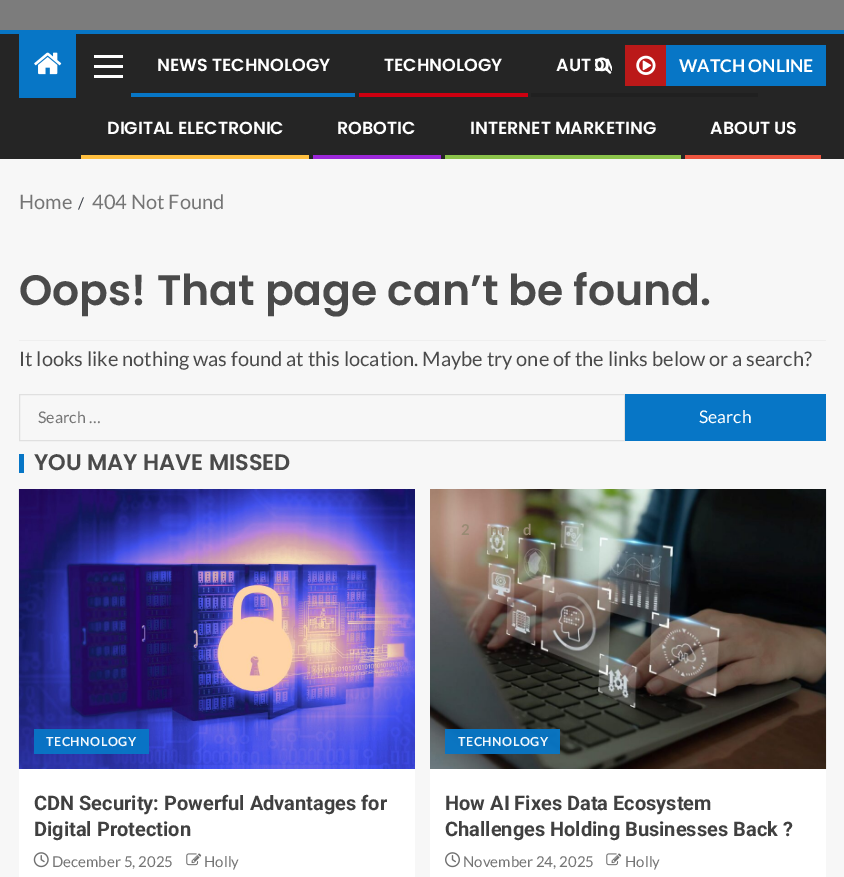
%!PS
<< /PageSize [844 877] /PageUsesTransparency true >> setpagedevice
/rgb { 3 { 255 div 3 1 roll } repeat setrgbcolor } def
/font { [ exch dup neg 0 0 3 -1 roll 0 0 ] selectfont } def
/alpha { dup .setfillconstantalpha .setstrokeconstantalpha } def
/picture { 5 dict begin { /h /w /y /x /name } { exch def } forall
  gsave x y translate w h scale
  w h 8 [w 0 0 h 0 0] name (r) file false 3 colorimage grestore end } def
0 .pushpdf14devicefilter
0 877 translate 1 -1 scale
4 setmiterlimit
247 247 247 rgb
0 0 844 877 rectfill
[
  [0 0 844 30 124 124 124]
  [0 34 844 125 37 37 37]
  [0 30 844 4 7 118 198]
  [19 34 57 64 7 118 198]
] { aload pop rgb rectfill } forall
(img/1.rgb) 34 52 28 23 picture
[
  [94 65 29 3 255 255 255]
  [94 55 29 3 255 255 255]
  [94 75 29 3 255 255 255]
  [131 93 224 4 7 118 198]
  [359 93 169 4 204 0 16]
  [531 93 227 4 32 32 32]
  [81 155 228 4 255 191 63]
  [313 155 128 4 156 39 217]
  [445 155 236 4 139 195 74]
  [685 155 136 4 237 85 63]
] { aload pop rgb rectfill } forall
(img/2.rgb) 595 57 17 17 picture
187 25 25 rgb
625 45 41 41 rectfill
(img/3.rgb) 636 55 20 20 picture
7 118 198 rgb
666 45 160 41 rectfill
238 238 238 rgb
19 340 807 1 rectfill
224 224 224 rgb
19.5 394.5 605 46 rectstroke
7 118 198 rgb
625 394 201 47 rectfill
19 454 5 19 rectfill
(img/4.rgb) 18 489 397 280 picture
0.95 alpha
34 729 115 25 rectfill
1 alpha
255 255 255 rgb
19 769 396 108 rectfill
(img/5.rgb) 33 852 16 16 picture
(img/6.rgb) 186 853 16 13 picture
(img/7.rgb) 430 489 397 280 picture
0.95 alpha
7 118 198 rgb
445 729 115 25 rectfill
1 alpha
255 255 255 rgb
430 769 396 108 rectfill
(img/8.rgb) 445 852 15 16 picture
(img/6.rgb) 606 853 16 13 picture
/Poppins-SemiBold 17.5 font
[
  [(NEWS TECHNOLOGY) 157 71]
  [(TECHNOLOGY) 384 71]
  [(AUT) 556 71]
  [(DIGITAL ELECTRONIC) 107 134]
  [(ROBOTIC) 337 134]
  [(INTERNET MARKETING) 470 134]
  [(ABOUT US) 710 134]
] { aload pop moveto show } forall
/Lato-Bold 17.5 font
679 72 moveto (WATCH ONLINE) show
/Lato-Regular 20 font
117 117 117 rgb
19 209 moveto (Home) show
/Lato-Regular 16 font
57 62 70 rgb
78 209 moveto (/) show
/Lato-Regular 20 font
117 117 117 rgb
92 209 moveto (404 Not Found) show
/Poppins-SemiBold 42.5 font
74 74 74 rgb
19 305 moveto (Oops! That page can’t be found.) show
/Lato-Regular 20 font
19 366 moveto (It looks like nothing was found at this location. Maybe try one of the links below or a search?) show
/Lato-Regular 16 font
117 117 117 rgb
38 423 moveto (Search …) show
/Lato-Regular 17.5 font
255 255 255 rgb
699 423 moveto (Search) show
/Poppins-SemiBold 22.5 font
74 74 74 rgb
34 470 moveto (YOU MAY HAVE MISSED) show
/Lato-Bold 12.5 font
243 248 252 rgb
46 746 moveto 0.5 0 (TECHNOLOGY) ashow
/Roboto-Bold 20 font
64 64 64 rgb
34 810 moveto (CDN Security: Powerful Advantages for) show
34 836 moveto (Digital Protection) show
/Lato-Regular 15 font
117 117 117 rgb
52 867 moveto (December 5, 2025) show
204 867 moveto (Holly) show
/Lato-Bold 15 font
153 138 115 rgb
[
  [(2) 461 535]
  [(n r) 490 535]
  [(d) 523 535]
] { aload pop moveto show } forall
/Lato-Bold 12.5 font
243 248 252 rgb
458 746 moveto 0.5 0 (TECHNOLOGY) ashow
/Roboto-Bold 20 font
64 64 64 rgb
445 810 moveto (How AI Fixes Data Ecosystem) show
445 836 moveto (Challenges Holding Businesses Back ?) show
/Lato-Regular 15 font
117 117 117 rgb
463 867 moveto (November 24, 2025) show
625 867 moveto (Holly) show
.poppdf14devicefilter showpage
